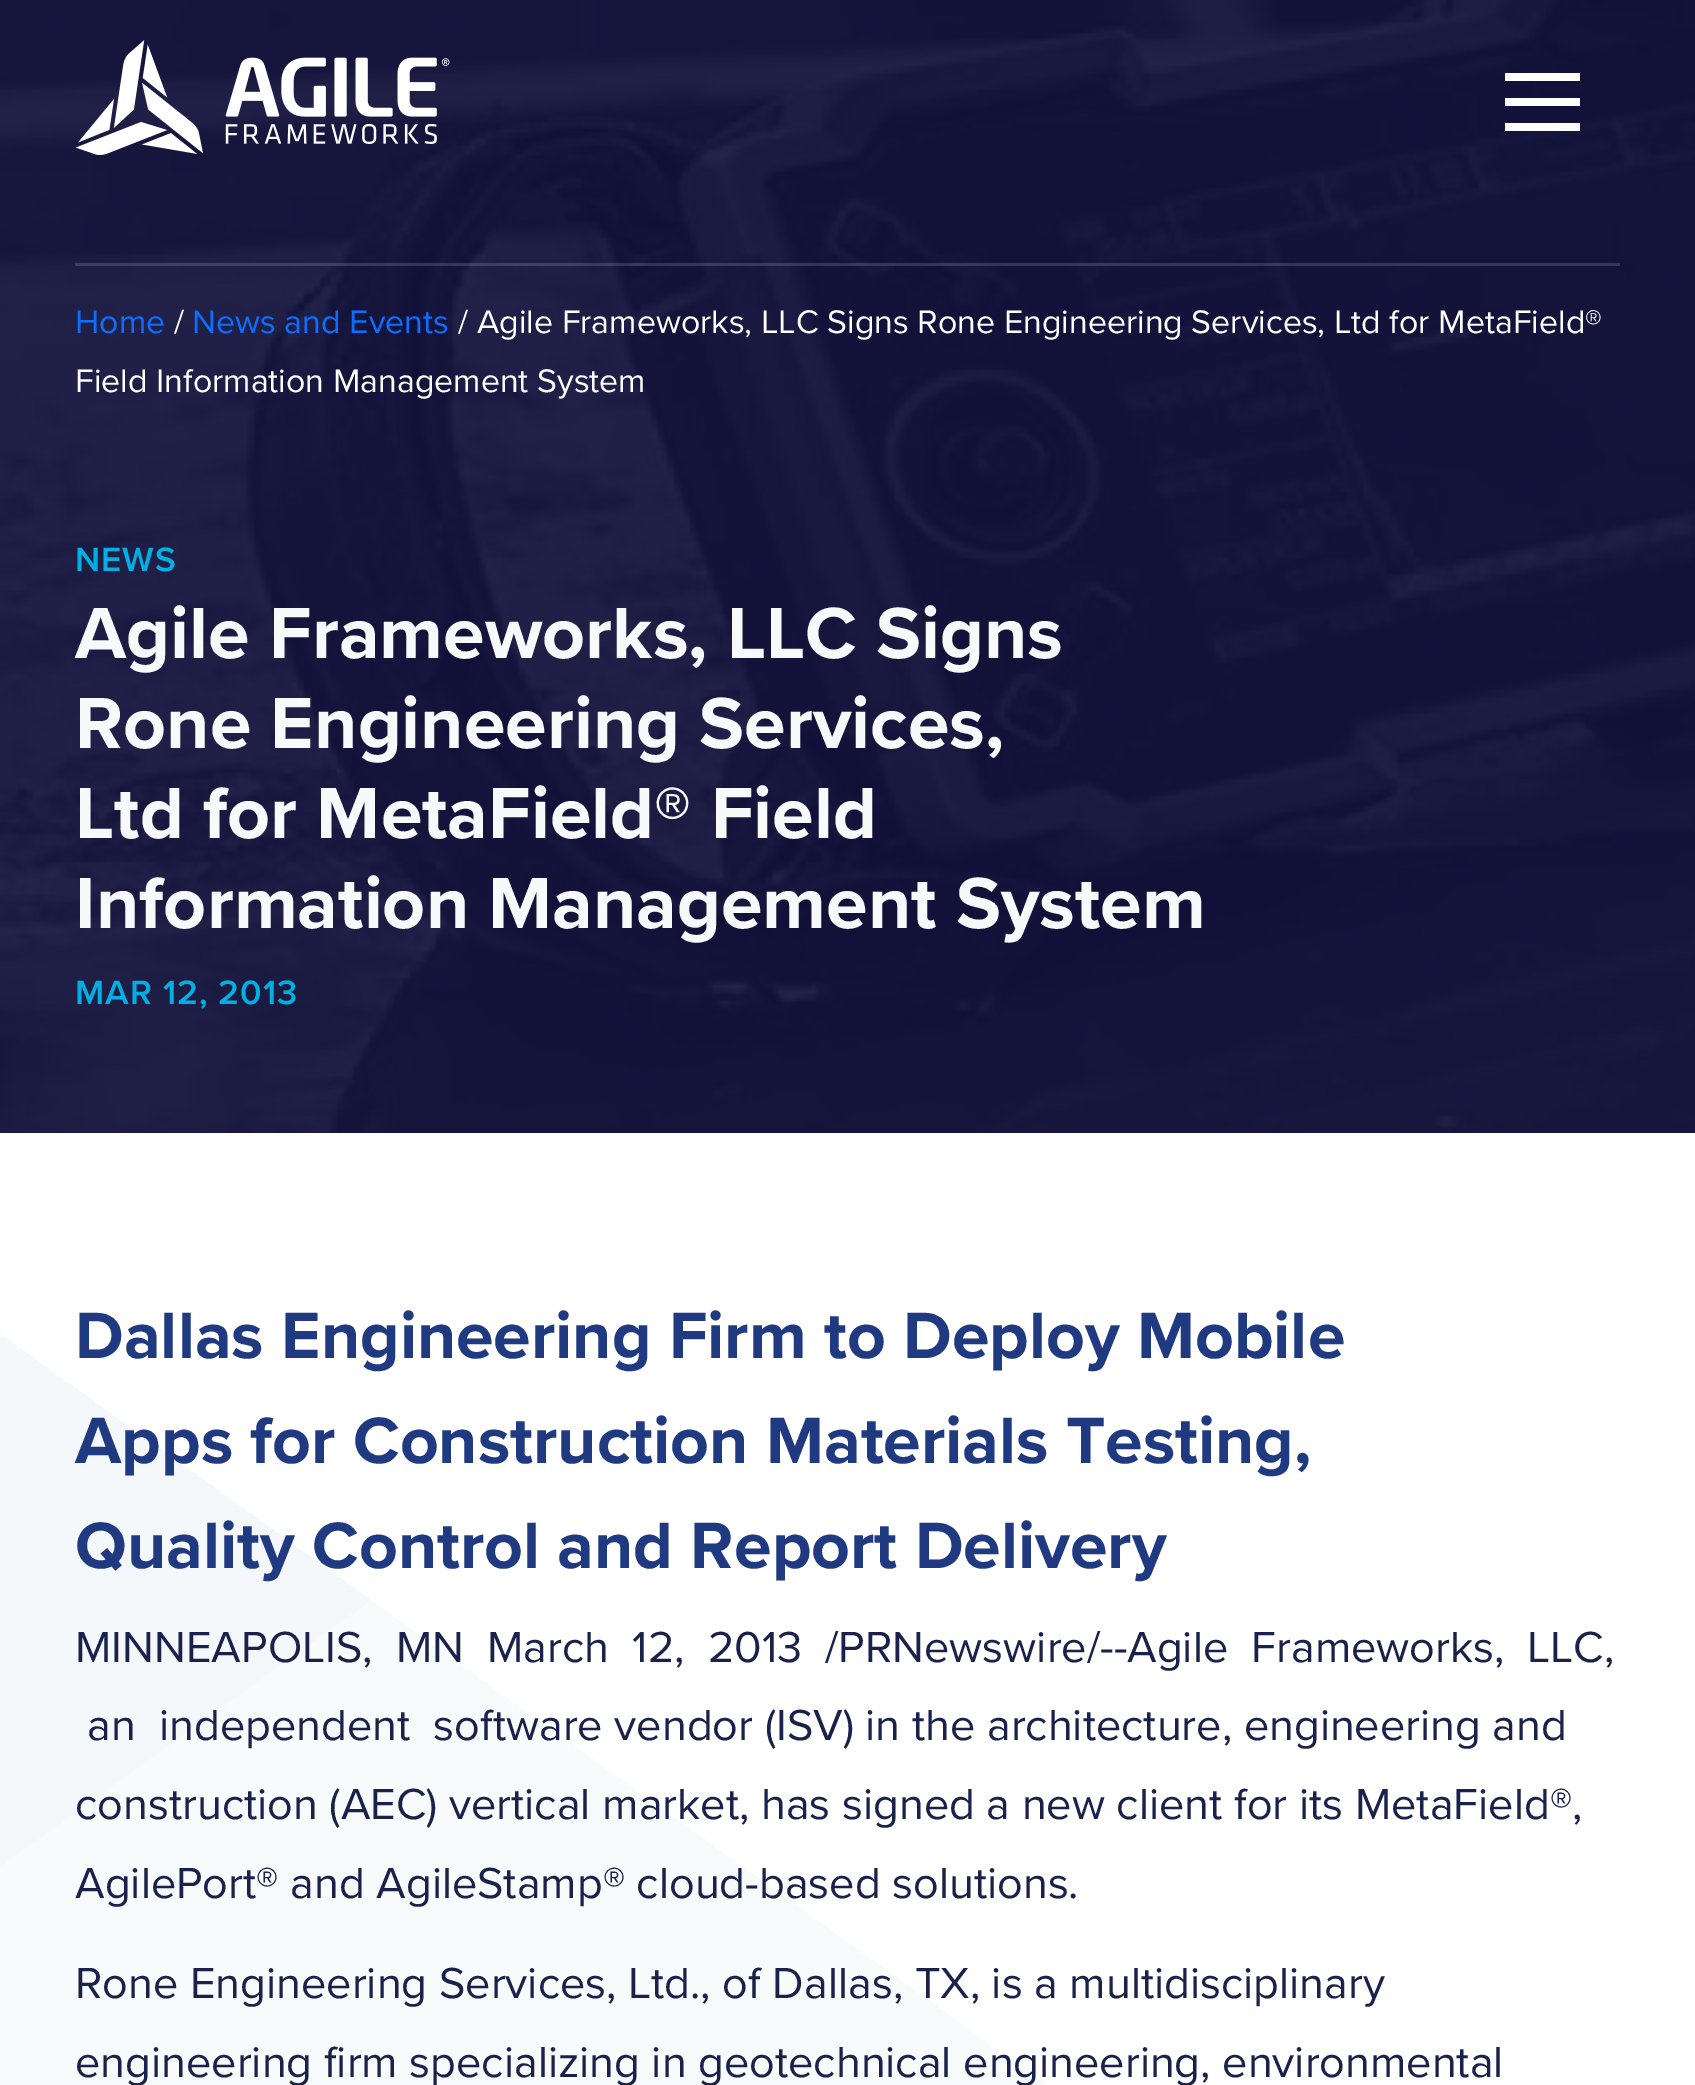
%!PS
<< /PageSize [1695 2085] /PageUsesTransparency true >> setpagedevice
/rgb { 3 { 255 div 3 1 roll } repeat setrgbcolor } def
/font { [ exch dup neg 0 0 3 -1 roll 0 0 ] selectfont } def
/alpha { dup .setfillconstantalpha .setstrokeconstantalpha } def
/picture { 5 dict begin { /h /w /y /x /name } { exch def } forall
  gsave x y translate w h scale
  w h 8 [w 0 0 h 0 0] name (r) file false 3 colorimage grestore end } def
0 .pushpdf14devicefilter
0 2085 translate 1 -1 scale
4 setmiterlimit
255 255 255 rgb
0 0 1695 2085 rectfill
(img/1.rgb) 0 1133 1046 952 picture
32 58 130 rgb
0 1132 1695 1 rectfill
(img/3.rgb) 0 0 1695 1133 picture
0.9 alpha
18 17 61 rgb
0 0 1695 1133 rectfill
1 alpha
(img/2.rgb) 75 40 375 115 picture
[
  [1505 73 75 8 255 255 255]
  [1505 98 75 8 255 255 255]
  [1505 123 75 8 255 255 255]
] { aload pop rgb rectfill } forall
0.15 alpha
[
  [75 263 1545 3 255 255 255]
] { aload pop rgb rectfill } forall
/ProximaNova-Regular 33.9 font
1 alpha
13 110 253 rgb
75 333 moveto (Home) show
255 255 255 rgb
174 333 moveto (/) show
13 110 253 rgb
192 333 moveto (News and Events) show
255 255 255 rgb
458 333 moveto (/ Agile Frameworks, LLC Signs Rone Engineering Services, Ltd for MetaField®) show
75 392 moveto (Field Information Management System) show
/ProximaNova-SemiBold 35 font
1 176 226 rgb
75 571 moveto 1 0 (NEWS) ashow
/ProximaNova-Bold 75 font
248 249 250 rgb
[
  [(Agile Frameworks, LLC Signs) 75 658]
  [(Rone Engineering Services,) 75 748]
  [(Ltd for MetaField® Field) 75 838]
  [(Information Management System) 75 928]
] { aload pop moveto show } forall
/ProximaNova-SemiBold 35 font
1 176 226 rgb
75 1004 moveto 1 0 (MAR 12, 2013) ashow
/ProximaNova-Bold 67.75 font
32 58 130 rgb
[
  [(Dallas Engineering Firm to Deploy Mobile) 75 1358]
  [(Apps for Construction Materials Testing,) 75 1463]
  [(Quality Control and Report Delivery) 75 1568]
] { aload pop moveto show } forall
/ProximaNova-Regular 45 font
26 34 75 rgb
[
  [(MINNEAPOLIS,  MN  March  12,  2013  /PRNewswire/--Agile  Frameworks,  LLC,) 75 1662]
  [(an  independent  software vendor \(ISV\) in the architecture, engineering and) 87 1740]
  [(construction \(AEC\) vertical market, has signed a new client for its MetaField®,) 75 1819]
  [(AgilePort® and AgileStamp® cloud-based solutions.) 75 1898]
  [(Rone Engineering Services, Ltd., of Dallas, TX, is a multidisciplinary) 75 1998]
  [(engineering firm specializing in geotechnical engineering, environmental) 75 2077]
] { aload pop moveto show } forall
.poppdf14devicefilter showpage
